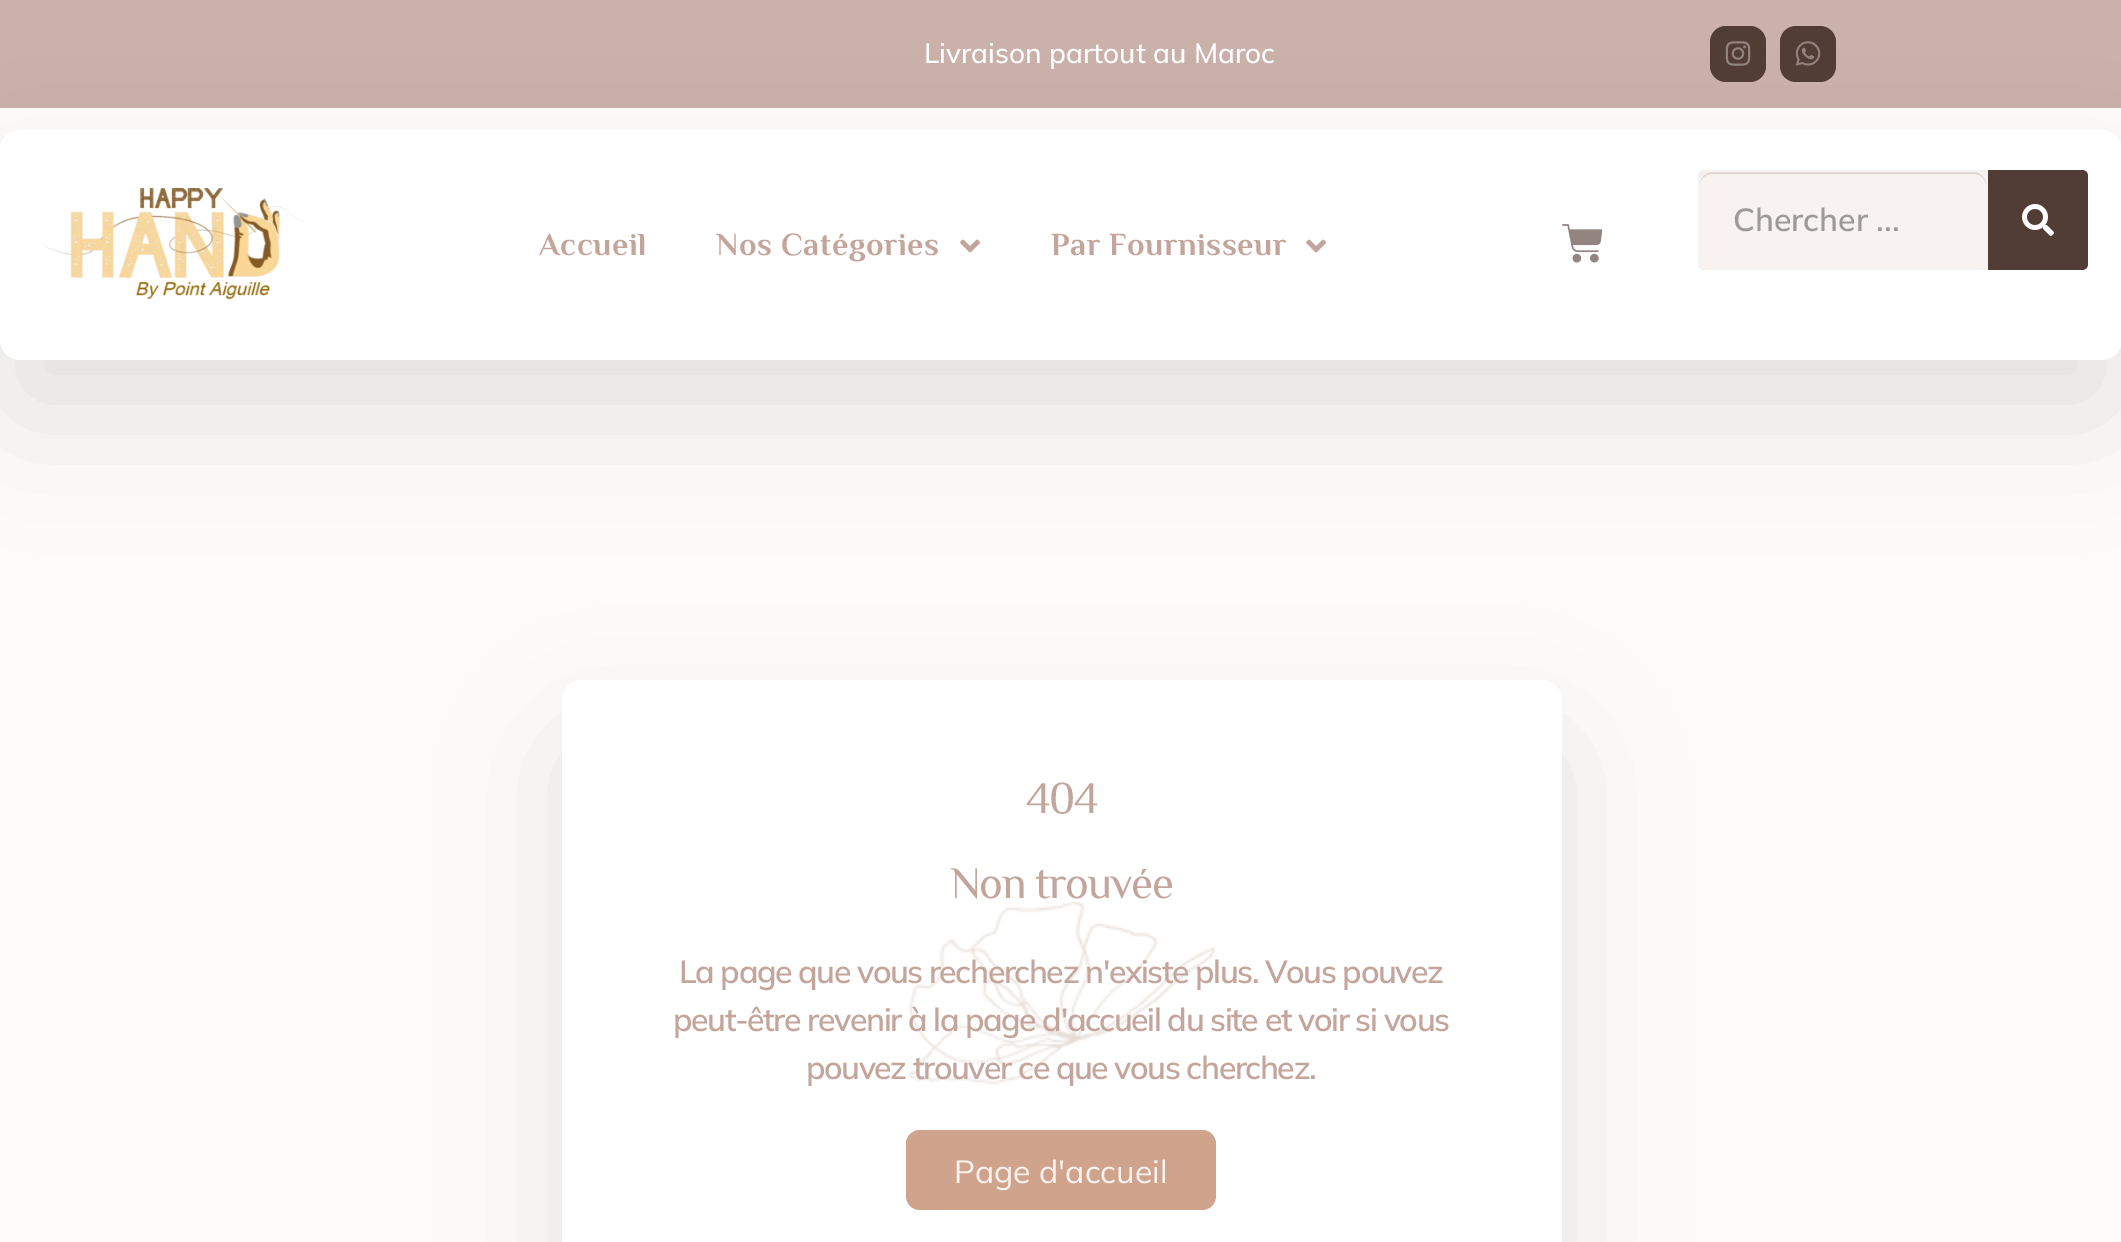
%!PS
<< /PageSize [2121 1242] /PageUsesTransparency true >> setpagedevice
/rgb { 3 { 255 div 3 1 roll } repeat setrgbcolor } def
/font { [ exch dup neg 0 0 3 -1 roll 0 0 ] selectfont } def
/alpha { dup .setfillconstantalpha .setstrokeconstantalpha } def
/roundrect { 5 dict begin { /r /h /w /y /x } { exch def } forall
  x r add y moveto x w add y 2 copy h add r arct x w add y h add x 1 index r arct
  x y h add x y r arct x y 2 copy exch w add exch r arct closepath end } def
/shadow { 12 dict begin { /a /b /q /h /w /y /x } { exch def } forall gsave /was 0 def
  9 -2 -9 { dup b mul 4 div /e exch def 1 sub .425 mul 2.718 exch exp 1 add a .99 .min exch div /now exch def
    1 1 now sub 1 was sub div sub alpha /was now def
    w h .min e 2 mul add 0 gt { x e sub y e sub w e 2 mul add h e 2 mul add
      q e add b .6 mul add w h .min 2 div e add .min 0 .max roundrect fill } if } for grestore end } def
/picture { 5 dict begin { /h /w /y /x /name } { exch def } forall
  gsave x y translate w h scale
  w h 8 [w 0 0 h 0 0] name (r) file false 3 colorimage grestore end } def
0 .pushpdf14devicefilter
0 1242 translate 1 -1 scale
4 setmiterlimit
254 251 251 rgb
0 0 2121 1242 rectfill
202 178 171 rgb
0 0 2121 108 rectfill
82 60 54 rgb
1710 26 56 56 16 roundrect fill
(img/1.rgb) 1725 41 26 25 picture
1780 26 56 56 16 roundrect fill
(img/2.rgb) 1795 41 26 25 picture
0 0 0 rgb
0 190 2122 230 20 60 0.1 shadow
255 255 255 rgb
0 130 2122 230 20 roundrect fill
(img/3.rgb) 42 188 262 112 picture
241 242 243 rgb
1698 170 390 100 6 roundrect fill
248 242 240 rgb
1698 170 290 100 14 roundrect fill
217 212 210 rgb
1712 174 moveto 1705 174 1700 179 1700 186 curveto 1700 184 lineto 1700 177 1705 172 1712 172 curveto 1974 172 lineto 1981 172 1986 177 1986 184 curveto 1986 186 lineto 1986 179 1981 174 1974 174 curveto closepath fill
248 242 240 rgb
2 setlinewidth
1699 171 288 98 13 roundrect stroke
82 60 54 rgb
1988 170 moveto 2082 170 lineto 2085.5 170 2088 172.5 2088 176 curveto 2088 264 lineto 2088 267.5 2085.5 270 2082 270 curveto 1988 270 lineto closepath fill
(img/4.rgb) 2022 204 32 32 picture
(img/5.rgb) 960 239 20 14 picture
(img/5.rgb) 1306 239 20 14 picture
(img/6.rgb) 1562 224 41 39 picture
0 0 0 rgb
562 740 1000 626 20 60 0.1 shadow
255 255 255 rgb
562 680 1000 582 20 roundrect fill
(img/7.rgb) 908 902 308 183 picture
208 163 141 rgb
906 1130 310 80 14 roundrect fill
/Mulish-Medium 28 font
255 255 255 rgb
924 63 moveto (Livraison partout au Maroc) show
/Mulish-SemiBold 32 font
157 155 154 rgb
1733 231 moveto (Chercher ...) show
/Philosopher-Bold 32 font
195 165 156 rgb
539 255 moveto 0.6 0 (Accueil) ashow
716 255 moveto 0.6 0 (Nos Catégories) ashow
1051 255 moveto 0.6 0 (Par Fournisseur) ashow
/Philosopher-Regular 45 font
1026 813 moveto -1.4 0 (404) ashow
950 898 moveto -1.4 0 (Non trouvée) ashow
/Mulish-SemiBold 32 font
679 983 moveto -1.4 0 (La page que vous recherchez n'existe plus. Vous pouvez) ashow
673 1031 moveto -1.4 0 (peut-être revenir à la page d'accueil du site et voir si vous) ashow
806 1079 moveto -1.4 0 (pouvez trouver ce que vous cherchez.) ashow
/Mulish-Regular 32 font
248 242 240 rgb
954 1183 moveto (Page d'accueil) show
.poppdf14devicefilter showpage
